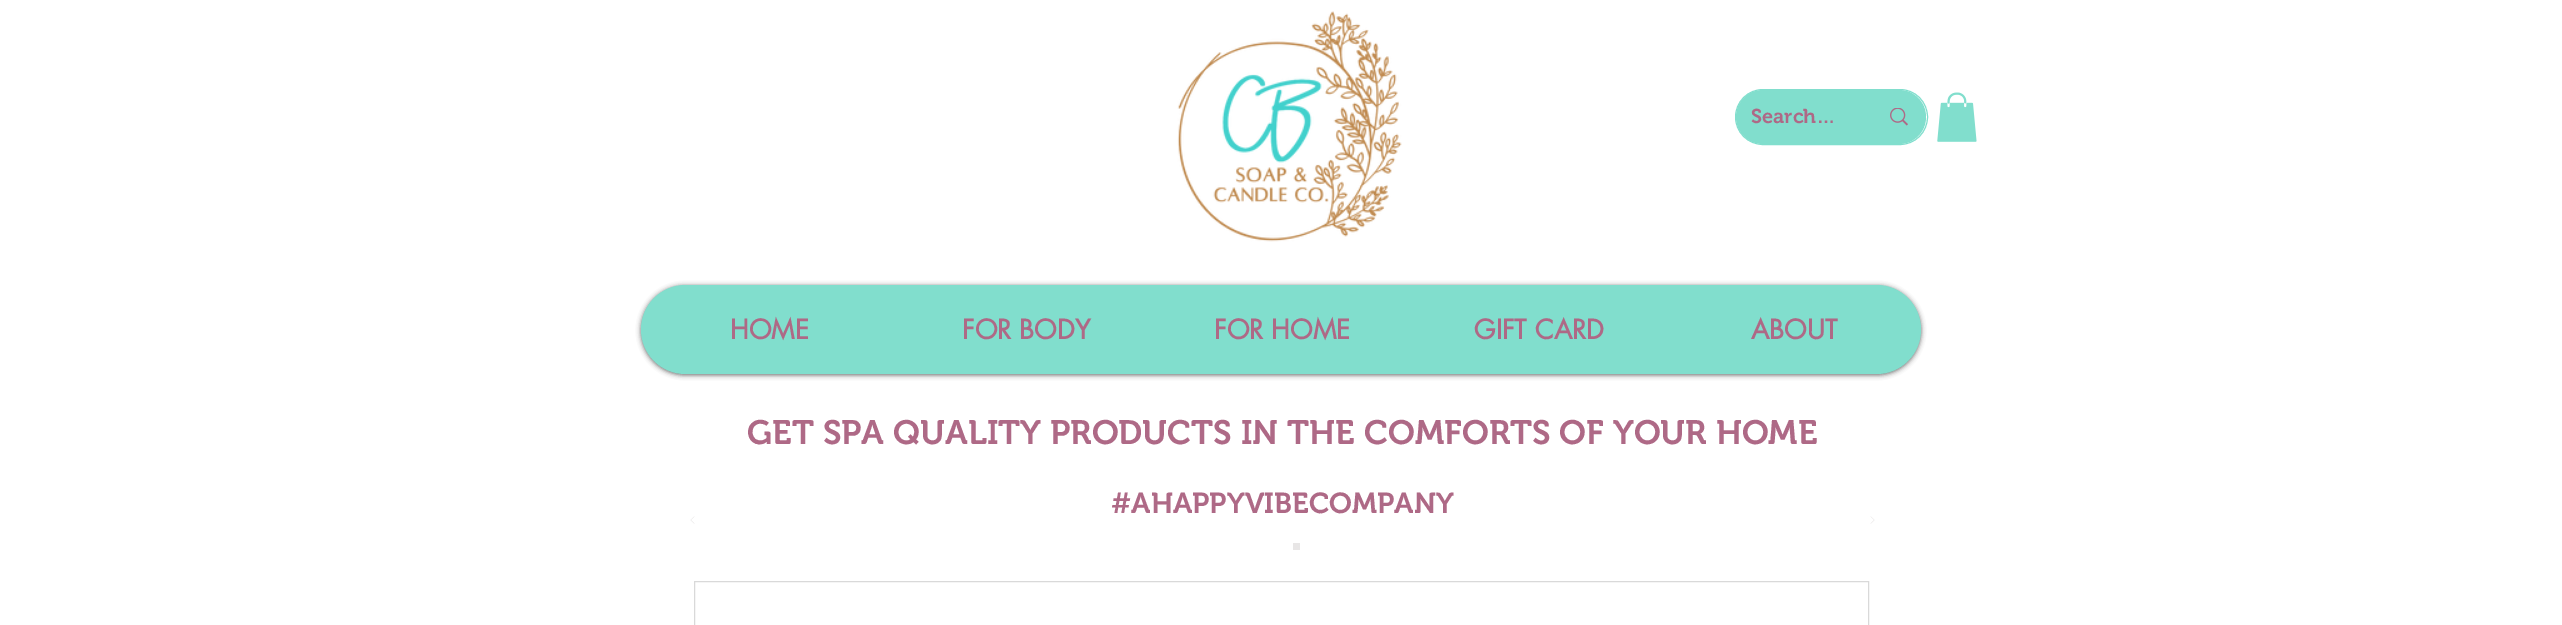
%!PS
<< /PageSize [2562 625] /PageUsesTransparency true >> setpagedevice
/rgb { 3 { 255 div 3 1 roll } repeat setrgbcolor } def
/font { [ exch dup neg 0 0 3 -1 roll 0 0 ] selectfont } def
/alpha { dup .setfillconstantalpha .setstrokeconstantalpha } def
/roundrect { 5 dict begin { /r /h /w /y /x } { exch def } forall
  x r add y moveto x w add y 2 copy h add r arct x w add y h add x 1 index r arct
  x y h add x y r arct x y 2 copy exch w add exch r arct closepath end } def
/shadow { 12 dict begin { /a /b /q /h /w /y /x } { exch def } forall gsave /was 0 def
  9 -2 -9 { dup b mul 4 div /e exch def 1 sub .425 mul 2.718 exch exp 1 add a .99 .min exch div /now exch def
    1 1 now sub 1 was sub div sub alpha /was now def
    w h .min e 2 mul add 0 gt { x e sub y e sub w e 2 mul add h e 2 mul add
      q e add b .6 mul add w h .min 2 div e add .min 0 .max roundrect fill } if } for grestore end } def
/picture { 5 dict begin { /h /w /y /x /name } { exch def } forall
  gsave x y translate w h scale
  w h 8 [w 0 0 h 0 0] name (r) file false 3 colorimage grestore end } def
0 .pushpdf14devicefilter
0 625 translate 1 -1 scale
4 setmiterlimit
255 255 255 rgb
0 0 2562 625 rectfill
(img/1.rgb) 1177 11 225 231 picture
129 222 205 rgb
1735.5 89.5 192 55 27.5 roundrect stroke
1736 90 190 54 27 roundrect fill
(img/2.rgb) 1890 108 18 18 picture
(img/3.rgb) 1937 92 40 50 picture
0 0 0 rgb
641 286 1280 89 44.5 2.5 0.6 shadow
129 222 205 rgb
641 285 1280 89 44.5 roundrect fill
(img/4.rgb) 690 516 5 8 picture
(img/5.rgb) 1870 516 5 8 picture
232 230 230 rgb
1293 543 7 7 rectfill
217 217 217 rgb
694.5 581.5 1174 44 rectstroke
/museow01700-SemiBold 20 font
174 105 134 rgb
1751 123 moveto (Search…) show
/futura-Bold 26.25 font
[
  [(HOME) 730 339]
  [(FOR BODY) 962 339]
  [(FOR HOME) 1214 339]
  [(GIFT CARD) 1474 339]
  [(ABOUT) 1751 339]
] { aload pop moveto show } forall
/museow01700-SemiBold 33.75 font
747 444 moveto (GET SPA QUALITY PRODUCTS IN THE COMFORTS OF YOUR HOME) show
/museow01700-SemiBold 28.75 font
1111 513 moveto (#AHAPPYVIBECOMPANY) show
.poppdf14devicefilter showpage
